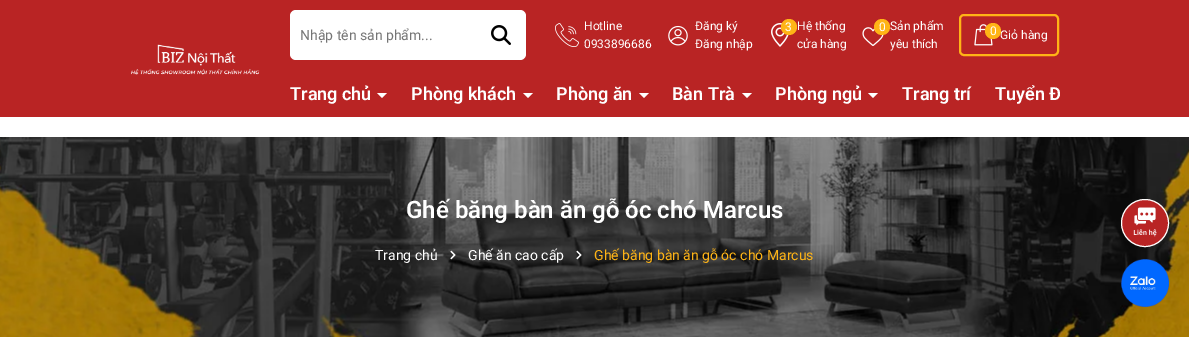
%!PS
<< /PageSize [1189 347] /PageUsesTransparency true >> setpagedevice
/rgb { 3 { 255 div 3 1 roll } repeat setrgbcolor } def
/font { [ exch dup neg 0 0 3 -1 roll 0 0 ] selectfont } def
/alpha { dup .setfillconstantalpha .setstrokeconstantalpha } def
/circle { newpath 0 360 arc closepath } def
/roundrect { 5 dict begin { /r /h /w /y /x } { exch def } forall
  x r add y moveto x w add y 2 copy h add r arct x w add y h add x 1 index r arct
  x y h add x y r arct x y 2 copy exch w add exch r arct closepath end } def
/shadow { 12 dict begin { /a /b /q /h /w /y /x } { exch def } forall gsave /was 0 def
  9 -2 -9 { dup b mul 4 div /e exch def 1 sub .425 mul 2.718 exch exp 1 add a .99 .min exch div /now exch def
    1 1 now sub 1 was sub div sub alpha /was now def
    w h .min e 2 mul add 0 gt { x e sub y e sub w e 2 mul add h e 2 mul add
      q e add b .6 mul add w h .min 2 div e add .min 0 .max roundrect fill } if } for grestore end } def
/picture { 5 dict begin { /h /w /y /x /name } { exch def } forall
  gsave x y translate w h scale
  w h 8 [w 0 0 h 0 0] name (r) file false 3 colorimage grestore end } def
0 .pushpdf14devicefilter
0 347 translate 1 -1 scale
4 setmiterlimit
255 255 255 rgb
0 0 1189 347 rectfill
185 36 36 rgb
0 0 1189 117 rectfill
(img/1.rgb) 130 44 130 31 picture
255 255 255 rgb
290 10 236 50 6 roundrect fill
(img/2.rgb) 491 25 20 20 picture
(img/3.rgb) 555 23 24 24 picture
(img/4.rgb) 668 25 20 21 picture
(img/5.rgb) 771 23 18 24 picture
255 180 22 rgb
789 27 8 circle fill
(img/6.rgb) 862 27 22 19 picture
882 27 8 circle fill
2 setlinewidth
960 15 98 40 4 roundrect stroke
(img/7.rgb) 974 24 19 22 picture
255 255 255 rgb
377 93 moveto 387 93 lineto 382 98 lineto closepath fill
523 93 moveto 533 93 lineto 528 98 lineto closepath fill
639 93 moveto 649 93 lineto 644 98 lineto closepath fill
742 93 moveto 752 93 lineto 747 98 lineto closepath fill
868 93 moveto 878 93 lineto 873 98 lineto closepath fill
(img/8.rgb) 0 137 1189 200 picture
(img/9.rgb) 450 250 6 10 picture
(img/10.rgb) 576 250 6 10 picture
0 0 0 rgb
1121 203 48 48 24 4 0.15 shadow
185 36 36 rgb
1145 223 23.5 circle gsave fill grestore
255 255 255 rgb
1 setlinewidth
stroke
(img/11.rgb) 1133 207 24 30 picture
(img/12.rgb) 1121 259 48 48 picture
/Roboto-Regular 14 font
117 117 117 rgb
300 40 moveto (Nhập tên sản phẩm...) show
/Roboto-Regular 12 font
255 255 255 rgb
[
  [(Hotline) 584 30]
  [(0933896686) 584 48]
  [(Đăng ký) 695 30]
  [(Đăng nhập) 695 48]
  [(3) 785 31]
  [(Hệ thống) 797 30]
  [(cửa hàng) 797 48]
  [(0) 879 31]
  [(Sản phẩm) 890 30]
  [(yêu thích) 890 48]
  [(Giỏ hàng) 1000 39]
] { aload pop moveto show } forall
255 180 22 rgb
993 31 8 circle fill
255 255 255 rgb
990 35 moveto (0) show
/Roboto-SemiBold 18 font
[
  [(Trang chủ) 290 100]
  [(Phòng khách) 411 100]
  [(Phòng ăn) 556 100]
  [(Bàn Trà) 672 100]
  [(Phòng ngủ) 775 100]
  [(Trang trí) 902 100]
] { aload pop moveto show } forall
gsave
290 70 770 47 rectclip
995 100 moveto (Tuyển Đ) show
grestore
/Roboto-SemiBold 24 font
406 218 moveto (Ghế băng bàn ăn gỗ óc chó Marcus) show
/Roboto-Regular 14 font
375 260 moveto (Trang chủ) show
468 260 moveto (Ghế ăn cao cấp) show
255 180 22 rgb
594 260 moveto (Ghế băng bàn ăn gỗ óc chó Marcus) show
.poppdf14devicefilter showpage
